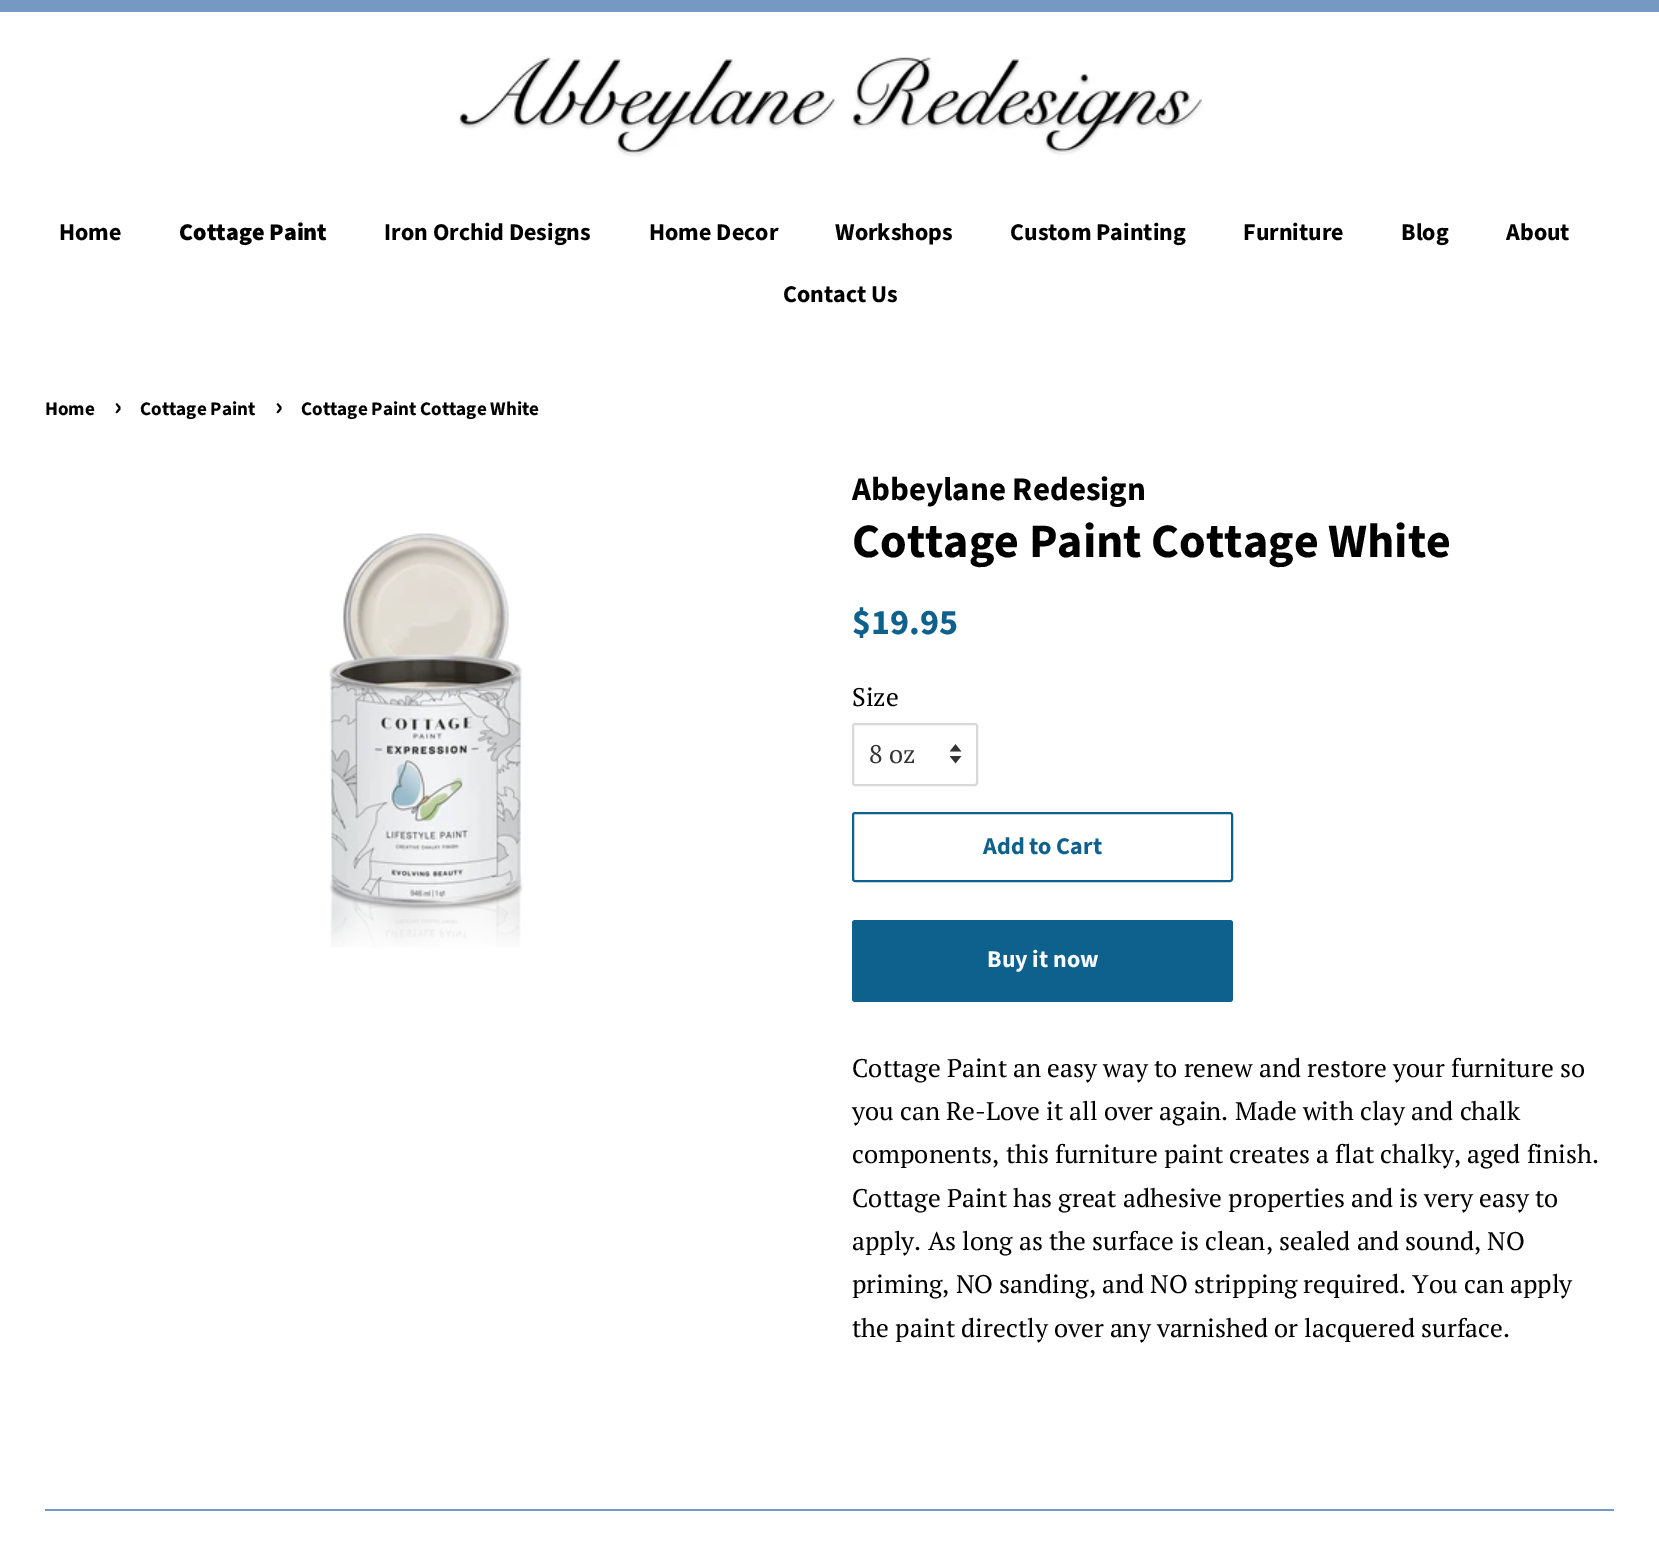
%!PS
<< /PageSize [1659 1546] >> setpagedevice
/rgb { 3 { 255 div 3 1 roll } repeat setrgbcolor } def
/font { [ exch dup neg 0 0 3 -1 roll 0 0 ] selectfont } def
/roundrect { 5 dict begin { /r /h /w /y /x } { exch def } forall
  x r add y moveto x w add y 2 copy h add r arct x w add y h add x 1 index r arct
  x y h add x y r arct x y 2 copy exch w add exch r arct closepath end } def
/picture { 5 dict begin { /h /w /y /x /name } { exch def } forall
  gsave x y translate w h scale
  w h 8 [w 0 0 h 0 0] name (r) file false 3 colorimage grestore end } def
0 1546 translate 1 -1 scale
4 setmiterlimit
255 255 255 rgb
0 0 1659 1546 rectfill
117 153 194 rgb
0 0 1659 12 rectfill
(img/1.rgb) 458 56 746 101 picture
(img/2.rgb) 329 533 194 415 picture
(img/3.rgb) 950 744 12 20 picture
217 217 217 rgb
2 setlinewidth
853 724 124 61 2 roundrect stroke
15 97 141 rgb
853 813 379 68 2 roundrect stroke
852 920 381 82 3 roundrect fill
117 153 194 rgb
45 1509 1569 2 rectfill
/SourceSansPro-Bold 24 font
0 0 0 rgb
59 240 moveto (Home) show
/SourceSansPro-Black 24 font
179 240 moveto (Cottage Paint) show
/SourceSansPro-Bold 24 font
[
  [(Iron Orchid Designs) 384 240]
  [(Home Decor) 649 240]
  [(Workshops) 835 240]
  [(Custom Painting) 1010 240]
  [(Furniture) 1243 240]
  [(Blog) 1401 240]
  [(About) 1506 240]
  [(Contact Us) 783 302]
] { aload pop moveto show } forall
/SourceSansPro-Bold 19.1 font
45 415 moveto (Home) show
/SourceSansPro-Bold 27 font
114 415 moveto (›) show
/SourceSansPro-Bold 19.1 font
140 415 moveto (Cottage Paint) show
/SourceSansPro-Bold 27 font
275 415 moveto (›) show
/SourceSansPro-Bold 19.1 font
301 415 moveto (Cottage Paint Cottage White) show
/SourceSansPro-Bold 33 font
852 500 moveto (Abbeylane Redesign) show
/SourceSansPro-Bold 48 font
852 557 moveto (Cottage Paint Cottage White) show
/SourceSansPro-Bold 36 font
15 97 141 rgb
852 634 moveto ($19.95) show
/PTSerif-Regular 25.5 font
0 0 0 rgb
852 706 moveto (Size) show
51 51 51 rgb
869 763 moveto (8 oz) show
/SourceSansPro-Bold 24 font
15 97 141 rgb
983 854 moveto (Add to Cart) show
250 250 250 rgb
987 967 moveto (Buy it now) show
/PTSerif-Regular 25.5 font
0 0 0 rgb
[
  [(Cottage Paint an easy way to renew and restore your furniture so) 852 1077]
  [(you can Re-Love it all over again. Made with clay and chalk) 852 1120]
  [(components, this furniture paint creates a flat chalky, aged finish.) 852 1163]
  [(Cottage Paint has great adhesive properties and is very easy to) 852 1207]
  [(apply. As long as the surface is clean, sealed and sound, NO) 852 1250]
  [(priming, NO sanding, and NO stripping required. You can apply) 852 1293]
  [(the paint directly over any varnished or lacquered surface.) 852 1337]
] { aload pop moveto show } forall
showpage
